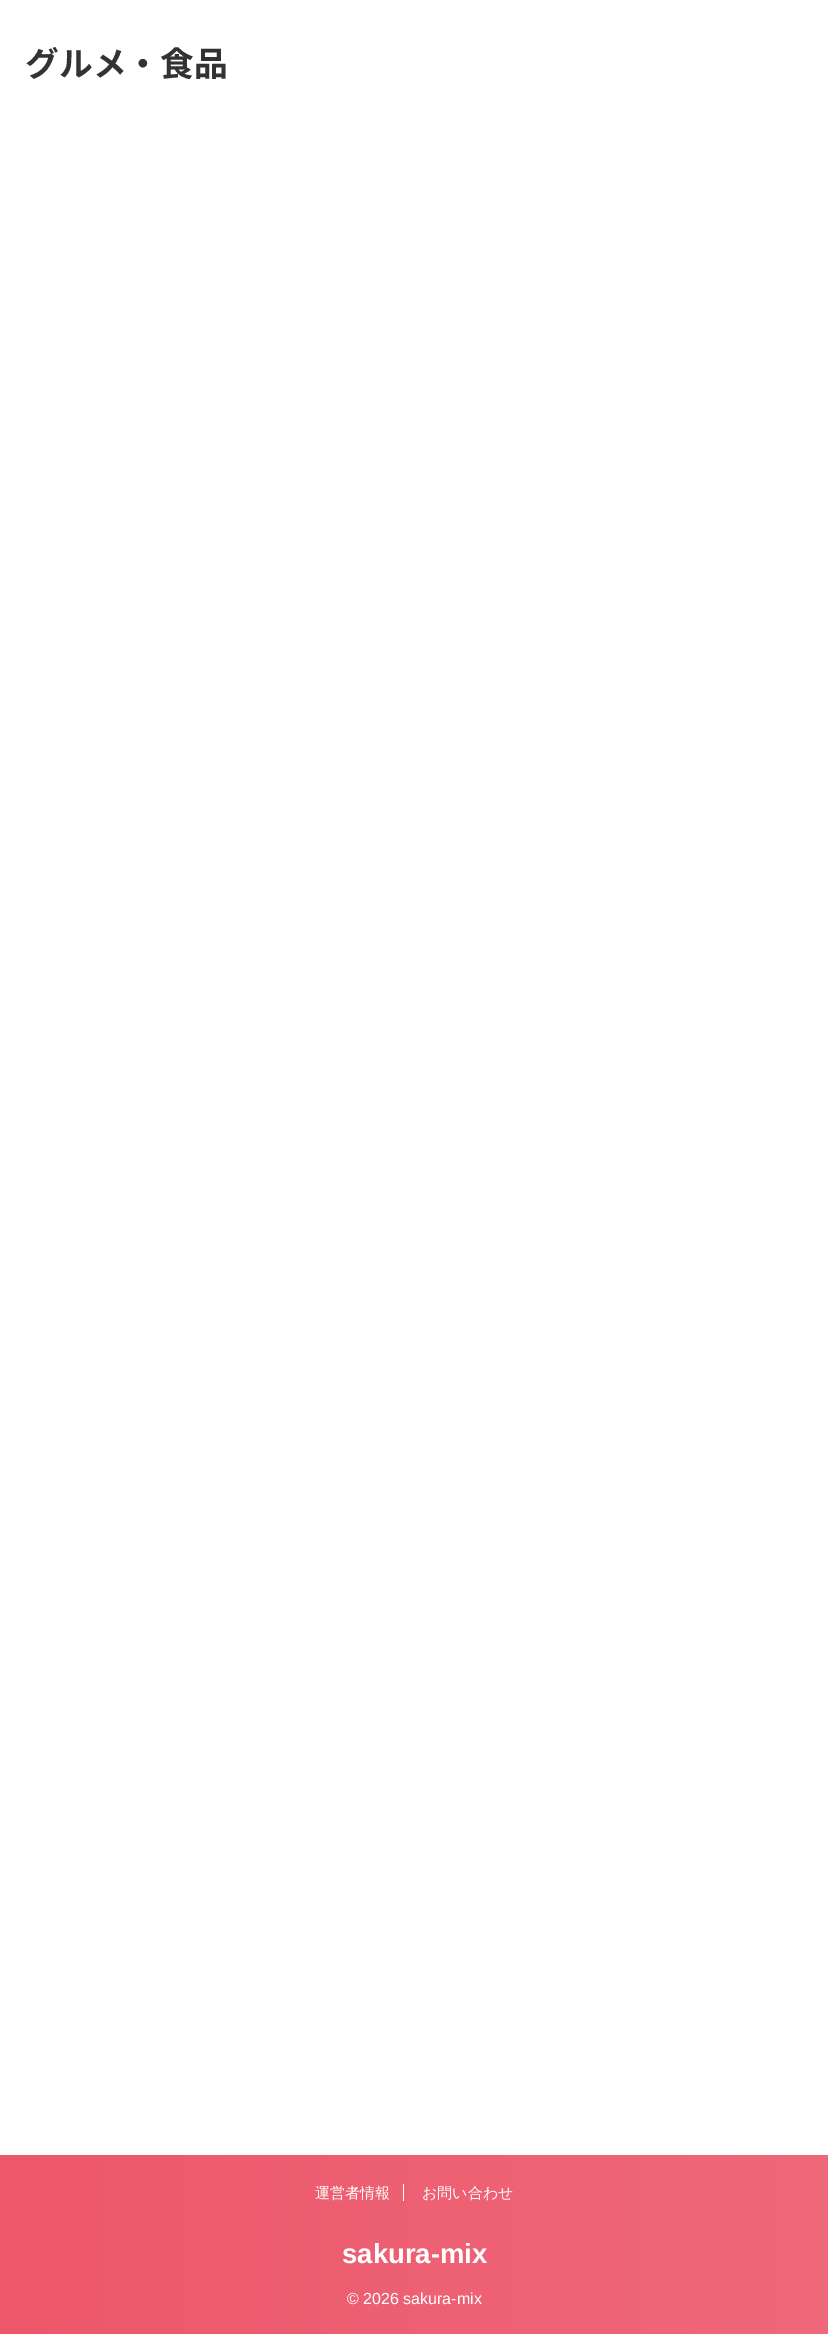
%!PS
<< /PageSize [828 2335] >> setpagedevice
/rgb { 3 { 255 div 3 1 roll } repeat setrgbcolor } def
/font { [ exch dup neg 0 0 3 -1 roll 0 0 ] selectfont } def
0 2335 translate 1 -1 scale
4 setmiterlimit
255 255 255 rgb
0 0 828 2335 rectfill
gsave 0 2155 moveto 828 2155 lineto 828 2334 lineto 0 2334 lineto closepath clip newpath
<< /ShadingType 2 /ColorSpace /DeviceRGB /Coords [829 2244 0 2244] /Extend [true true] /Function << /FunctionType 2 /Domain [0 1] /C0 [0.937 0.412 0.482] /C1 [0.929 0.341 0.42] /N 1 >> >> shfill grestore
403 2184 1 17 rectfill
/NotoSansJP-Bold 33.75 font
51 51 51 rgb
25 76 moveto (グルメ・食品) show
/WenQuanYiZenHei-Medium 15 font
255 255 255 rgb
315 2198 moveto (運営者情報) show
422 2198 moveto (お問い合わせ) show
/LiberationSans-Bold 27.5 font
342 2263 moveto (sakura-mix) show
/LiberationSans-Regular 16 font
347 2304 moveto (© 2026 sakura-mix) show
showpage
